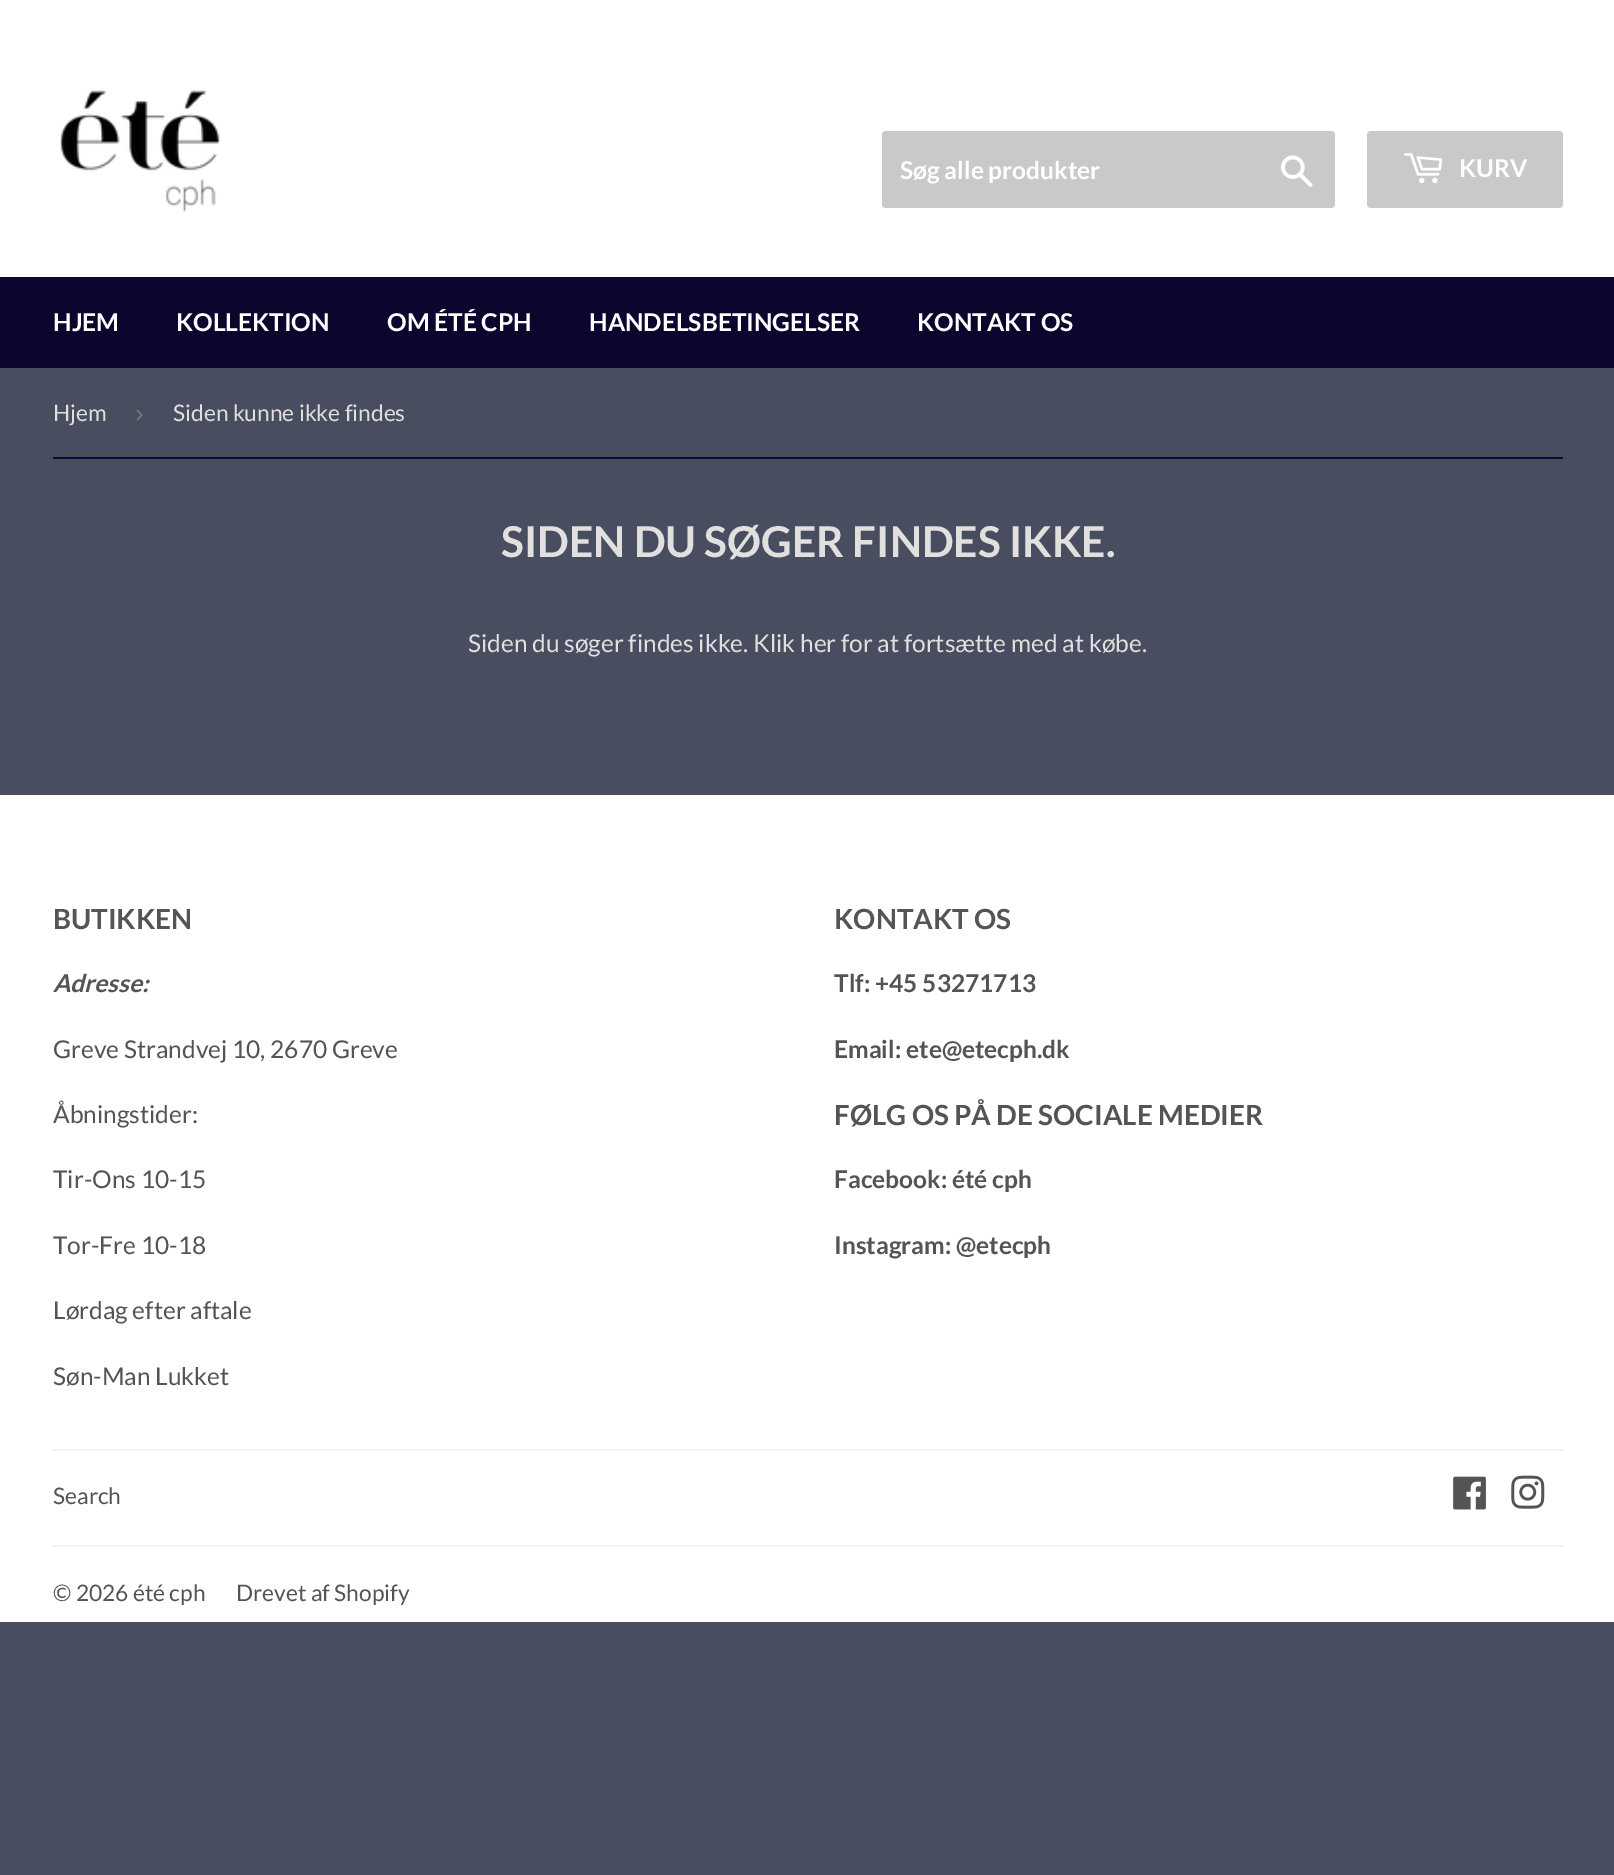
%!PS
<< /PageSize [1614 1875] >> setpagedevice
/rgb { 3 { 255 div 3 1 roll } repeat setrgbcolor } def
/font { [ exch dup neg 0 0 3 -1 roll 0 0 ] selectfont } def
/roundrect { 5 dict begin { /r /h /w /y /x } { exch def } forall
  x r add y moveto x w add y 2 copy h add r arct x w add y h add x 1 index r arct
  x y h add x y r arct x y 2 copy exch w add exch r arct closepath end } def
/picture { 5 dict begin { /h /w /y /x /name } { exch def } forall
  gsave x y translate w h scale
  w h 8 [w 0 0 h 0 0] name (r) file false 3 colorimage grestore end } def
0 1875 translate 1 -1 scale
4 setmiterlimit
72 78 96 rgb
0 0 1614 1875 rectfill
255 255 255 rgb
0 0 1614 277 rectfill
(img/1.rgb) 60 90 160 122 picture
203 200 200 rgb
882 131 453 77 4 roundrect fill
(img/2.rgb) 1281 155 32 32 picture
1367 131 196 77 4 roundrect fill
(img/3.rgb) 1404 153 39 31 picture
[
  [0 277 1614 91 14 5 46]
  [53 457 1510 2 20 7 67]
  [0 795 1614 827 255 255 255]
  [53 1449 1510 2 242 242 242]
] { aload pop rgb rectfill } forall
(img/4.rgb) 1453 1476 33 34 picture
(img/5.rgb) 1511 1475 34 34 picture
53 1545 1510 2 rectfill
/Lato-Bold 24.5 font
255 255 255 rgb
[
  [(Søg alle produkter) 900 179]
  [(KURV) 1459 177]
  [(HJEM) 53 331]
  [(KOLLEKTION) 176 331]
  [(OM ÉTÉ CPH) 387 331]
  [(HANDELSBETINGELSER) 589 331]
  [(KONTAKT OS) 917 331]
] { aload pop moveto show } forall
/Lato-Regular 22.75 font
226 223 223 rgb
53 421 moveto (Hjem) show
/LiberationSans-Regular 26 font
118 118 118 rgb
135 422 moveto (›) show
/Lato-Regular 22.75 font
226 223 223 rgb
173 421 moveto (Siden kunne ikke findes) show
/Lato-Bold 42.5 font
501 557 moveto (SIDEN DU SØGER FINDES IKKE.) show
/Lato-Regular 24.5 font
468 652 moveto (Siden du søger findes ikke. Klik her for at fortsætte med at købe.) show
/Lato-Bold 27.75 font
84 84 84 rgb
53 929 moveto (BUTIKKEN) show
/Lato-BoldItalic 24.5 font
53 992 moveto (Adresse:) show
/Lato-Regular 24.5 font
[
  [(Greve Strandvej 10, 2670 Greve) 53 1058]
  [(Åbningstider:) 53 1123]
  [(Tir-Ons 10-15) 53 1188]
  [(Tor-Fre 10-18) 53 1254]
  [(Lørdag efter aftale) 53 1319]
  [(Søn-Man Lukket) 53 1385]
] { aload pop moveto show } forall
/Lato-Bold 27.75 font
834 929 moveto (KONTAKT OS) show
/Lato-Bold 24.5 font
834 992 moveto (Tlf: +45 53271713) show
834 1058 moveto (Email: ete@etecph.dk) show
/Lato-Bold 27.75 font
834 1125 moveto (FØLG OS PÅ DE SOCIALE MEDIER) show
/Lato-Bold 24.5 font
834 1188 moveto (Facebook: été cph) show
834 1254 moveto (Instagram: @etecph) show
/Lato-Regular 22.75 font
[
  [(Search) 53 1504]
  [(© 2026 été cph) 53 1601]
  [(Drevet af Shopify) 236 1601]
] { aload pop moveto show } forall
showpage
